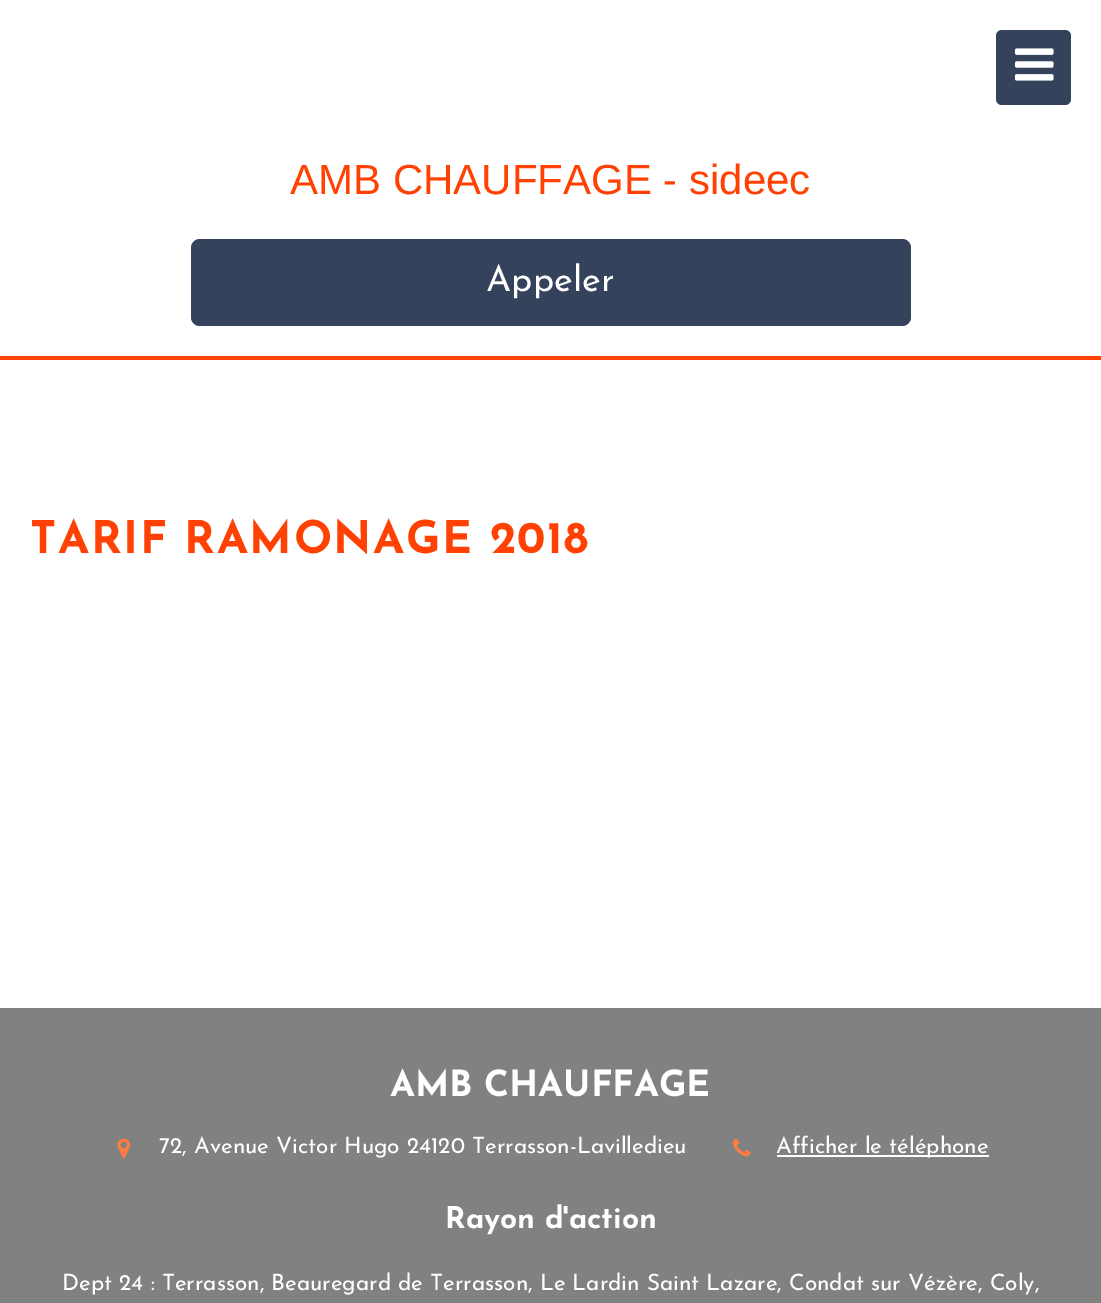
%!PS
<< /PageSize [1101 1303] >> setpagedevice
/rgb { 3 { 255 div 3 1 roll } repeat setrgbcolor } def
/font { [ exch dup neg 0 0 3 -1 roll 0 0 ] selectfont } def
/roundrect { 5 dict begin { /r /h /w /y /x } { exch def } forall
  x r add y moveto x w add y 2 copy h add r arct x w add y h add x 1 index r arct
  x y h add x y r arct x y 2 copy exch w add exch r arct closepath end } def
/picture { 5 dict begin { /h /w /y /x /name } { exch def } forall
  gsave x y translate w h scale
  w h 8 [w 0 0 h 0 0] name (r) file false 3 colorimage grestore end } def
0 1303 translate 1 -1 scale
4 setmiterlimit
255 255 255 rgb
0 0 1101 1303 rectfill
255 65 3 rgb
0 356 1101 4 rectfill
52 66 92 rgb
996 30 75 75 6 roundrect fill
(img/1.rgb) 1014 48 40 33 picture
191 239 720 87 9 roundrect fill
128 130 130 rgb
0 1008 1101 295 rectfill
(img/2.rgb) 117 1138 14 20 picture
(img/3.rgb) 732 1138 19 19 picture
255 255 255 rgb
777 1155 212 2 rectfill
/LiberationSans-Regular 42 font
255 65 3 rgb
290 194 moveto (AMB CHAUFFAGE - sideec) show
/JosefinSans-Regular 36 font
255 255 255 rgb
486 291 moveto (Appeler) show
/JosefinSans-Bold 45 font
255 65 3 rgb
30 553 moveto 1.5 0 (TARIF RAMONAGE 2018) ashow
/JosefinSans-Bold 36 font
255 255 255 rgb
390 1096 moveto (AMB CHAUFFAGE) show
/JosefinSans-Regular 22.5 font
159 1153 moveto (72, Avenue Victor Hugo 24120 Terrasson-Lavilledieu) show
776 1153 moveto (Afficher le téléphone) show
/JosefinSans-Bold 30 font
445 1228 moveto (Rayon d'action) show
/JosefinSans-Regular 22.5 font
62 1290 moveto (Dept 24 : Terrasson, Beauregard de Terrasson, Le Lardin Saint Lazare, Condat sur Vézère, Coly,) show
showpage
